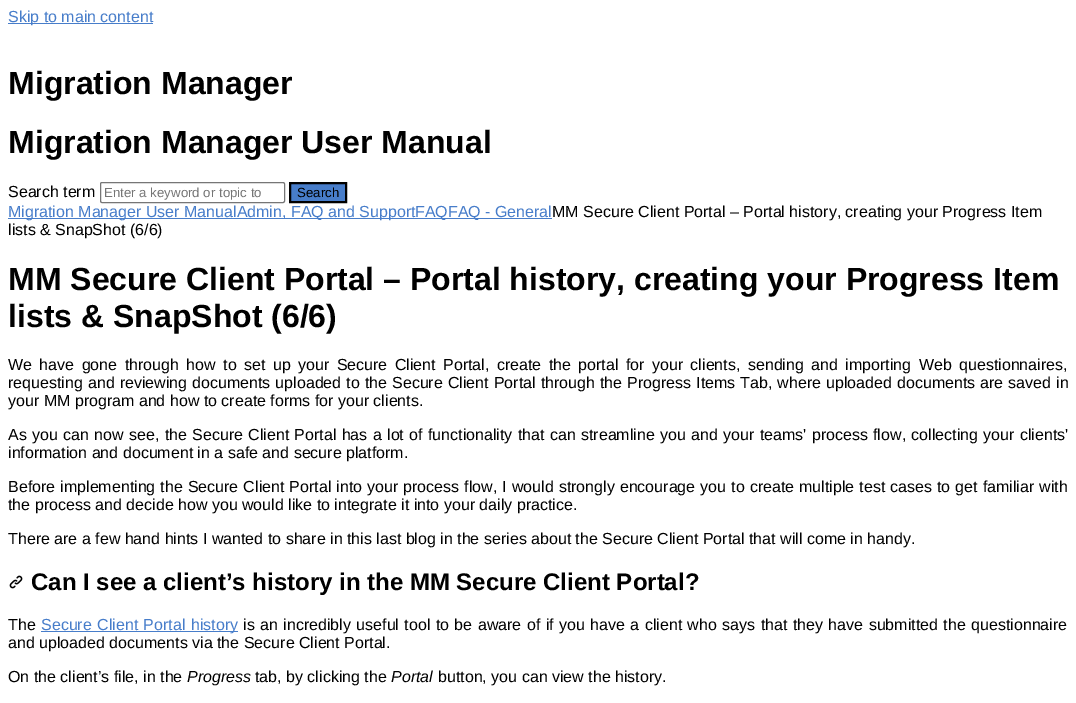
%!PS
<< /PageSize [1076 703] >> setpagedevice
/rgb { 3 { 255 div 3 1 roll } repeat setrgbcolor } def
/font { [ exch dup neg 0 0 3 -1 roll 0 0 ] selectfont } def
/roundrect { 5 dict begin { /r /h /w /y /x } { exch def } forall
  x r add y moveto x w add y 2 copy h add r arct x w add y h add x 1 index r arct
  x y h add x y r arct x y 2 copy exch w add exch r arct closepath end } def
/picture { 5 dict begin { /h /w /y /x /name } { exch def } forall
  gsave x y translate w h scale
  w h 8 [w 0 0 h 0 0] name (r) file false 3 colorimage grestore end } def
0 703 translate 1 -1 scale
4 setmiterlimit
255 255 255 rgb
0 0 1076 703 rectfill
71 125 202 rgb
8 23 145 1 rectfill
118 118 118 rgb
100.5 182.5 184 20 1.5 roundrect stroke
71 125 202 rgb
290 183 moveto 346 183 lineto 346 202 lineto 290 202 lineto closepath gsave fill grestore
0 0 0 rgb
2 setlinewidth
stroke
71 125 202 rgb
8 218 407 1 rectfill
415 218 137 1 rectfill
(img/1.rgb) 9 575 14 14 picture
41 631 197 1 rectfill
/LiberationSans-Regular 16 font
8 22 moveto (Skip to main content) show
/LiberationSans-Bold 32 font
0 0 0 rgb
8 94 moveto (Migration Manager) show
8 153 moveto (Migration Manager User Manual) show
/LiberationSans-Regular 16 font
8 197 moveto (Search term) show
/LiberationSans-Regular 13.25 font
117 117 117 rgb
104 197 moveto (Enter a keyword or topic to) show
0 0 0 rgb
297 197 moveto (Search) show
/LiberationSans-Regular 16 font
71 125 202 rgb
8 217 moveto (Migration Manager User ManualAdmin, FAQ and Support) show
415 217 moveto (FAQFAQ - General) show
0 0 0 rgb
552 217 moveto (MM Secure Client Portal – Portal history, creating your Progress Item) show
8 235 moveto (lists & SnapShot \(6/6\)) show
/LiberationSans-Bold 32 font
8 290 moveto (MM Secure Client Portal – Portal history, creating your Progress Item) show
8 327 moveto (lists & SnapShot \(6/6\)) show
/LiberationSans-Regular 16 font
8 370 moveto 3 0 32 (We have gone through how to set up your Secure Client Portal, create the portal for your clients, sending and importing Web questionnaires,) widthshow
8 388 moveto 0.6 0 32 (requesting and reviewing documents uploaded to the Secure Client Portal through the Progress Items Tab, where uploaded documents are saved in) widthshow
8 406 moveto (your MM program and how to create forms for your clients.) show
8 440 moveto 0.9 0 32 (As you can now see, the Secure Client Portal has a lot of functionality that can streamline you and your teams' process flow, collecting your clients') widthshow
8 458 moveto (information and document in a safe and secure platform.) show
8 492 moveto 0.6 0 32 (Before implementing the Secure Client Portal into your process flow, I would strongly encourage you to create multiple test cases to get familiar with) widthshow
8 510 moveto (the process and decide how you would like to integrate it into your daily practice.) show
8 544 moveto (There are a few hand hints I wanted to share in this last blog in the series about the Secure Client Portal that will come in handy.) show
/LiberationSans-Bold 24 font
31 590 moveto (Can I see a client’s history in the MM Secure Client Portal?) show
/LiberationSans-Regular 16 font
8 630 moveto (The) show
71 125 202 rgb
41 630 moveto 1 0 32 (Secure Client Portal history) widthshow
0 0 0 rgb
243 630 moveto 1 0 32 (is an incredibly useful tool to be aware of if you have a client who says that they have submitted the questionnaire) widthshow
8 648 moveto (and uploaded documents via the Secure Client Portal.) show
8 682 moveto (On the client’s file, in the) show
/LiberationSans-Italic 16 font
187 682 moveto (Progress) show
/LiberationSans-Regular 16 font
255 682 moveto (tab, by clicking the) show
/LiberationSans-Italic 16 font
391 682 moveto (Portal) show
/LiberationSans-Regular 16 font
438 682 moveto (button, you can view the history.) show
showpage
